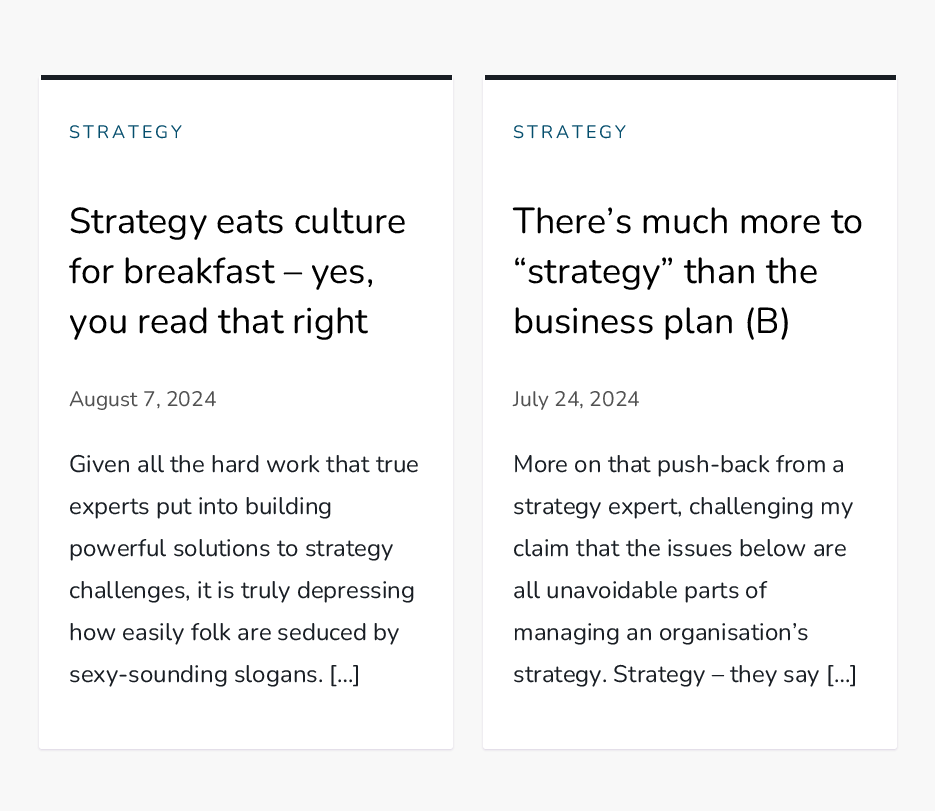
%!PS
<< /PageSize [935 811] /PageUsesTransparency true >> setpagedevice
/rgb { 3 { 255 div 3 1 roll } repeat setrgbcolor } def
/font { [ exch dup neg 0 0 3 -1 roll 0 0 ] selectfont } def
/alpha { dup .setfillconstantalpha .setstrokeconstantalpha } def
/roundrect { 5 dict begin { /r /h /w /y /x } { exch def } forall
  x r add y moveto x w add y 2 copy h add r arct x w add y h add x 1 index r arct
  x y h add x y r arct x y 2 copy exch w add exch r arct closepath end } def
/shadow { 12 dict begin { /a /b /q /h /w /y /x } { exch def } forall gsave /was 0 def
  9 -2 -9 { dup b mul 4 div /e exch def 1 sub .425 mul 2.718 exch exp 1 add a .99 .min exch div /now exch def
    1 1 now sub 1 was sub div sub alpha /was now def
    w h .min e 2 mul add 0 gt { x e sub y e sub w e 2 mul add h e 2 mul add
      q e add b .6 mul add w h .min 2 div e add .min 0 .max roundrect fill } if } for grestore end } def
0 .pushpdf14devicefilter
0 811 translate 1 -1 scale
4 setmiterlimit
248 248 248 rgb
0 0 935 811 rectfill
53 19 109 rgb
39 77 414 673 3 1 0.15 shadow
255 255 255 rgb
39 75 414 674 3 roundrect fill
25 30 36 rgb
41 75 411 5 rectfill
53 19 109 rgb
483 77 414 673 3 1 0.15 shadow
255 255 255 rgb
483 75 414 674 3 roundrect fill
25 30 36 rgb
485 75 411 5 rectfill
/Nunito-Regular 18 font
5 78 109 rgb
69 138 moveto 3 0 (STRATEGY) ashow
/Nunito-Regular 36 font
0 0 0 rgb
[
  [(Strategy eats culture) 69 233]
  [(for breakfast – yes,) 69 283]
  [(you read that right) 69 333]
] { aload pop moveto show } forall
/Nunito-Regular 21 font
81 81 81 rgb
69 406 moveto (August 7, 2024) show
/Nunito-Regular 24 font
25 30 36 rgb
[
  [(Given all the hard work that true) 69 472]
  [(experts put into building) 69 514]
  [(powerful solutions to strategy) 69 556]
  [(challenges, it is truly depressing) 69 598]
  [(how easily folk are seduced by) 69 640]
  [(sexy-sounding slogans. […]) 69 682]
] { aload pop moveto show } forall
/Nunito-Regular 18 font
5 78 109 rgb
513 138 moveto 3 0 (STRATEGY) ashow
/Nunito-Regular 36 font
0 0 0 rgb
[
  [(There’s much more to) 513 233]
  [(“strategy” than the) 513 283]
  [(business plan \(B\)) 513 333]
] { aload pop moveto show } forall
/Nunito-Regular 21 font
81 81 81 rgb
513 406 moveto (July 24, 2024) show
/Nunito-Regular 24 font
25 30 36 rgb
[
  [(More on that push-back from a) 513 472]
  [(strategy expert, challenging my) 513 514]
  [(claim that the issues below are) 513 556]
  [(all unavoidable parts of) 513 598]
  [(managing an organisation’s) 513 640]
  [(strategy. Strategy – they say […]) 513 682]
] { aload pop moveto show } forall
.poppdf14devicefilter showpage
